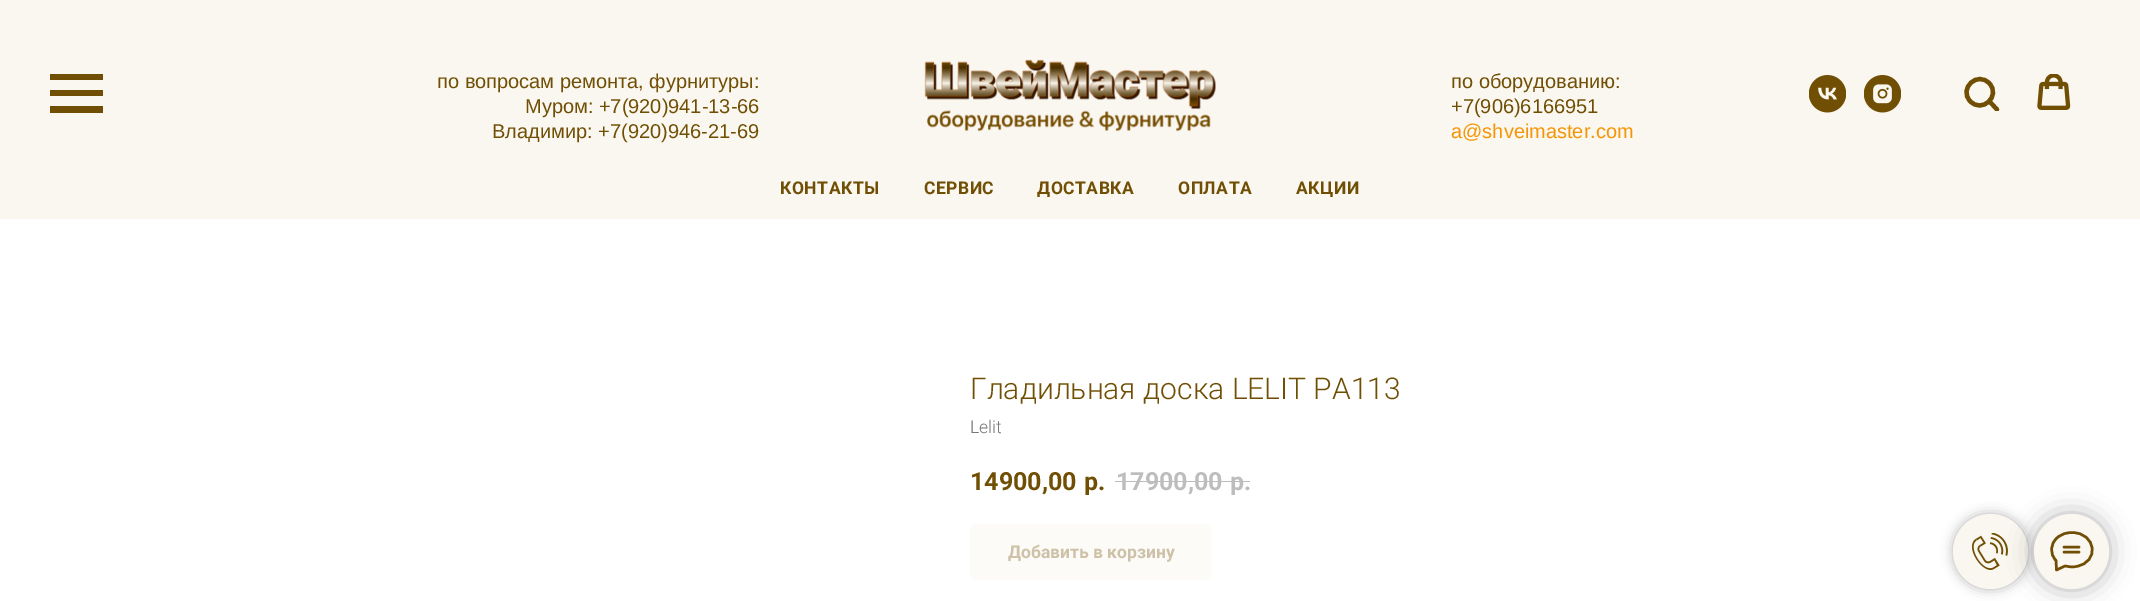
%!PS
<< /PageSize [2140 601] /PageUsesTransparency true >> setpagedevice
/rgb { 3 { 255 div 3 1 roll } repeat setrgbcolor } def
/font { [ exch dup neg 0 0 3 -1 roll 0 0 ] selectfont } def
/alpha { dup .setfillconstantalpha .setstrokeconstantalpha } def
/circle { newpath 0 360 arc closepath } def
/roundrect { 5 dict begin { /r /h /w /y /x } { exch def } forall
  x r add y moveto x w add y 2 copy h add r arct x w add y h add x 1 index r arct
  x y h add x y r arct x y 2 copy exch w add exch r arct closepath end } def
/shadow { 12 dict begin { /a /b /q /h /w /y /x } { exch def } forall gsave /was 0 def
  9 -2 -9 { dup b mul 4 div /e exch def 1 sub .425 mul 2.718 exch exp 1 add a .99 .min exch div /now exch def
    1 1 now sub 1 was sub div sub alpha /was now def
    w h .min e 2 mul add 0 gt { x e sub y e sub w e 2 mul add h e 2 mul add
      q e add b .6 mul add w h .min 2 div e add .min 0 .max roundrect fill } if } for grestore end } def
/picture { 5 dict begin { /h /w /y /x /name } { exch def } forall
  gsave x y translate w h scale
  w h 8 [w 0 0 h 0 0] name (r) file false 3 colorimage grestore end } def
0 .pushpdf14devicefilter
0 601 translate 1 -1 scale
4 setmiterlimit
255 255 255 rgb
0 0 2140 601 rectfill
[
  [0 0 2140 219 250 247 240]
  [50 74 53 6 112 79 4]
  [50 90 53 6 112 79 4]
  [50 106 53 7 112 79 4]
] { aload pop rgb rectfill } forall
(img/1.rgb) 924 59 292 73 picture
(img/2.rgb) 1809 75 37 38 picture
(img/3.rgb) 1864 75 37 38 picture
4.3 setlinewidth
1989.5 83.5 moveto 2001 96 1982 114 1970 101 curveto 1958.5 88.5 1977.5 70.5 1989.5 83.5 curveto closepath stroke
gsave
1963 74 37 37 rectclip
1 setlinecap
1990.5 102.5 moveto 1997 109.5 lineto stroke
grestore
(img/4.rgb) 2037 74 34 36 picture
189 189 189 rgb
1115 481 135 1 rectfill
253 251 248 rgb
970 524 241 56 5 roundrect fill
0 0 0 rgb
1953 514 75 75 37.5 6 0.3 shadow
250 247 240 rgb
1990.5 551.5 37.5 circle fill
(img/5.rgb) 1972 533 36 37 picture
0 0 0 rgb
2034 514 75 75 37.5 12.5 0.3 shadow
250 247 240 rgb
2071.5 551.5 37.5 circle fill
112 79 4 rgb
2.5 setlinewidth
1 setlinecap
1 setlinejoin
2064 547 moveto 2079 547 lineto 2064 552 moveto 2079 552 lineto 2056 560.5 moveto 2049.5 554 2050 543.5 2057.5 537.5 curveto 2061.5 534 2066.5 532.5 2072 532.5 curveto 2096 532.5 2100.5 562.5 2076 566.5 curveto 2072 567.5 2069 566.5 2065 566 curveto 2056.5 570 lineto closepath stroke
/LiberationSans-Regular 20 font
[
  [(по вопросам ремонта, фурнитуры:) 437 88]
  [(Муром: +7\(920\)941-13-66) 525 113]
  [(Владимир: +7\(920\)946-21-69) 492 138]
  [(по оборудованию:) 1451 88]
  [(+7\(906\)6166951) 1451 113]
] { aload pop moveto show } forall
245 149 5 rgb
1451 138 moveto (a@shveimaster.com) show
/Roboto-Bold 17.5 font
112 79 4 rgb
780 194 moveto 0.5 0 (КОНТАКТЫ) ashow
924 194 moveto 0.5 0 (СЕРВИС) ashow
1037 194 moveto 0.5 0 (ДОСТАВКА) ashow
1178 194 moveto 0.5 0 (ОПЛАТА) ashow
1296 194 moveto 0.5 0 (АКЦИИ) ashow
/Roboto-Light 30 font
970 399 moveto (Гладильная доска LELIT PA113) show
/Roboto-Light 17.5 font
119 119 119 rgb
970 433 moveto (Lelit) show
/Roboto-Bold 25 font
112 79 4 rgb
970 490 moveto (14900,00) show
1084 490 moveto (р.) show
189 189 189 rgb
1116 490 moveto (17900,00) show
1230 490 moveto (р.) show
/Roboto-Bold 17.5 font
205 193 167 rgb
1008 558 moveto (Добавить в корзину) show
.poppdf14devicefilter showpage
